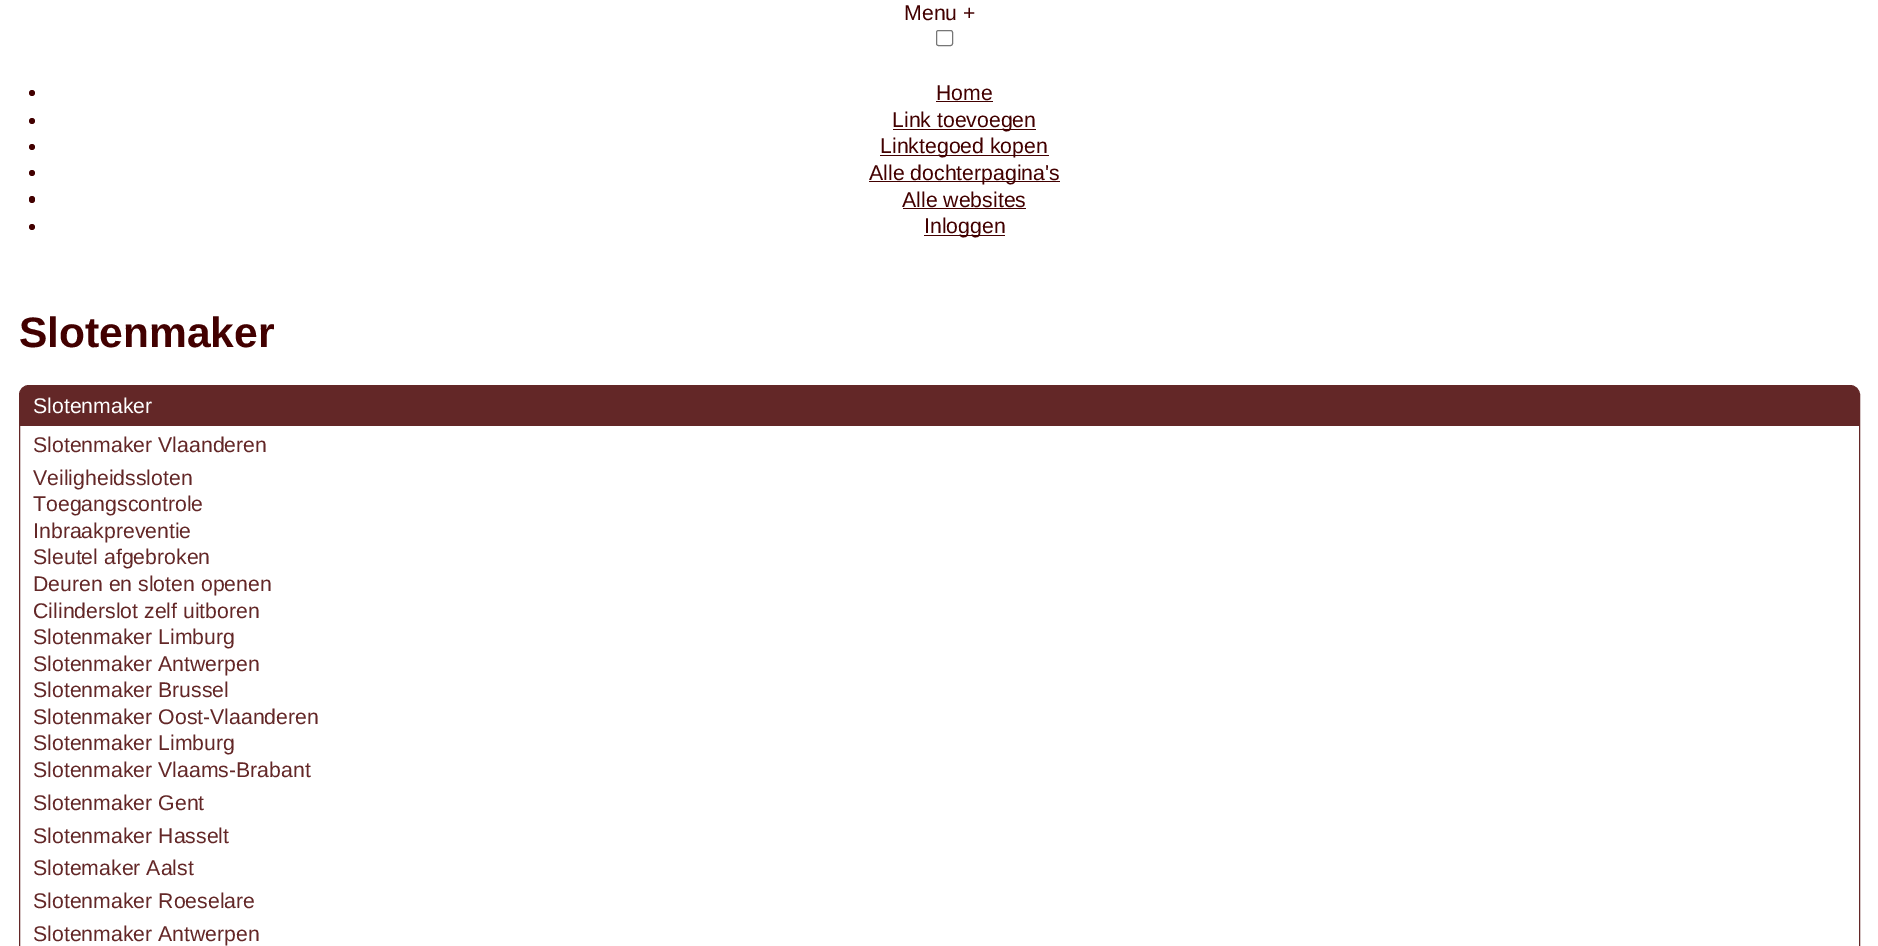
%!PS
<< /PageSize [1878 946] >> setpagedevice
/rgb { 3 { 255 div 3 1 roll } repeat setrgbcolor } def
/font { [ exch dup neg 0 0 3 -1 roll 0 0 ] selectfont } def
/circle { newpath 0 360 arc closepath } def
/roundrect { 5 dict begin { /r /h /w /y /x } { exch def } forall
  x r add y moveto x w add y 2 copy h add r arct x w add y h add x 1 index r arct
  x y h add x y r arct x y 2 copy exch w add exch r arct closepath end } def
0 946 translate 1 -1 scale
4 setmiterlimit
255 255 255 rgb
0 0 1878 946 rectfill
118 118 118 rgb
936.5 30.5 16 15 2 roundrect stroke
66 0 0 rgb
32 93 3 circle fill
936 101 57 1 rectfill
32 121 3 circle fill
893 129 143 1 rectfill
32 147 3 circle fill
880 155 169 1 rectfill
32 173 3 circle fill
869 181 191 1 rectfill
29 196 6 7 3 roundrect fill
903 208 123 1 rectfill
32 227 3 circle fill
924 235 81 1 rectfill
99 39 39 rgb
19.5 385.5 1840 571 9.5 roundrect stroke
28 386 moveto 1851 386 lineto 1855.5 386 1859 389.5 1859 394 curveto 1859 426 lineto 20 426 lineto 20 394 lineto 20 389.5 23.5 386 28 386 curveto closepath fill
/LiberationSans-Regular 21.25 font
66 0 0 rgb
[
  [(Menu +) 904 20]
  [(Home) 936 100]
  [(Link toevoegen) 892 127]
  [(Linktegoed kopen) 880 153]
  [(Alle dochterpagina's) 869 180]
  [(Alle websites) 902 207]
  [(Inloggen) 924 233]
] { aload pop moveto show } forall
/LiberationSans-Bold 42.5 font
19 347 moveto (Slotenmaker) show
/LiberationSans-Regular 21.25 font
255 255 255 rgb
33 413 moveto (Slotenmaker) show
99 39 39 rgb
[
  [(Slotenmaker Vlaanderen) 33 452]
  [(Veiligheidssloten) 33 485]
  [(Toegangscontrole) 33 511]
  [(Inbraakpreventie) 33 538]
  [(Sleutel afgebroken) 33 564]
  [(Deuren en sloten openen) 33 591]
  [(Cilinderslot zelf uitboren) 33 618]
  [(Slotenmaker Limburg) 33 644]
  [(Slotenmaker Antwerpen) 33 671]
  [(Slotenmaker Brussel) 33 697]
  [(Slotenmaker Oost-Vlaanderen) 33 724]
  [(Slotenmaker Limburg) 33 750]
  [(Slotenmaker Vlaams-Brabant) 33 777]
  [(Slotenmaker Gent) 33 810]
  [(Slotenmaker Hasselt) 33 843]
  [(Slotemaker Aalst) 33 875]
  [(Slotenmaker Roeselare) 33 908]
  [(Slotenmaker Antwerpen) 33 941]
] { aload pop moveto show } forall
showpage
